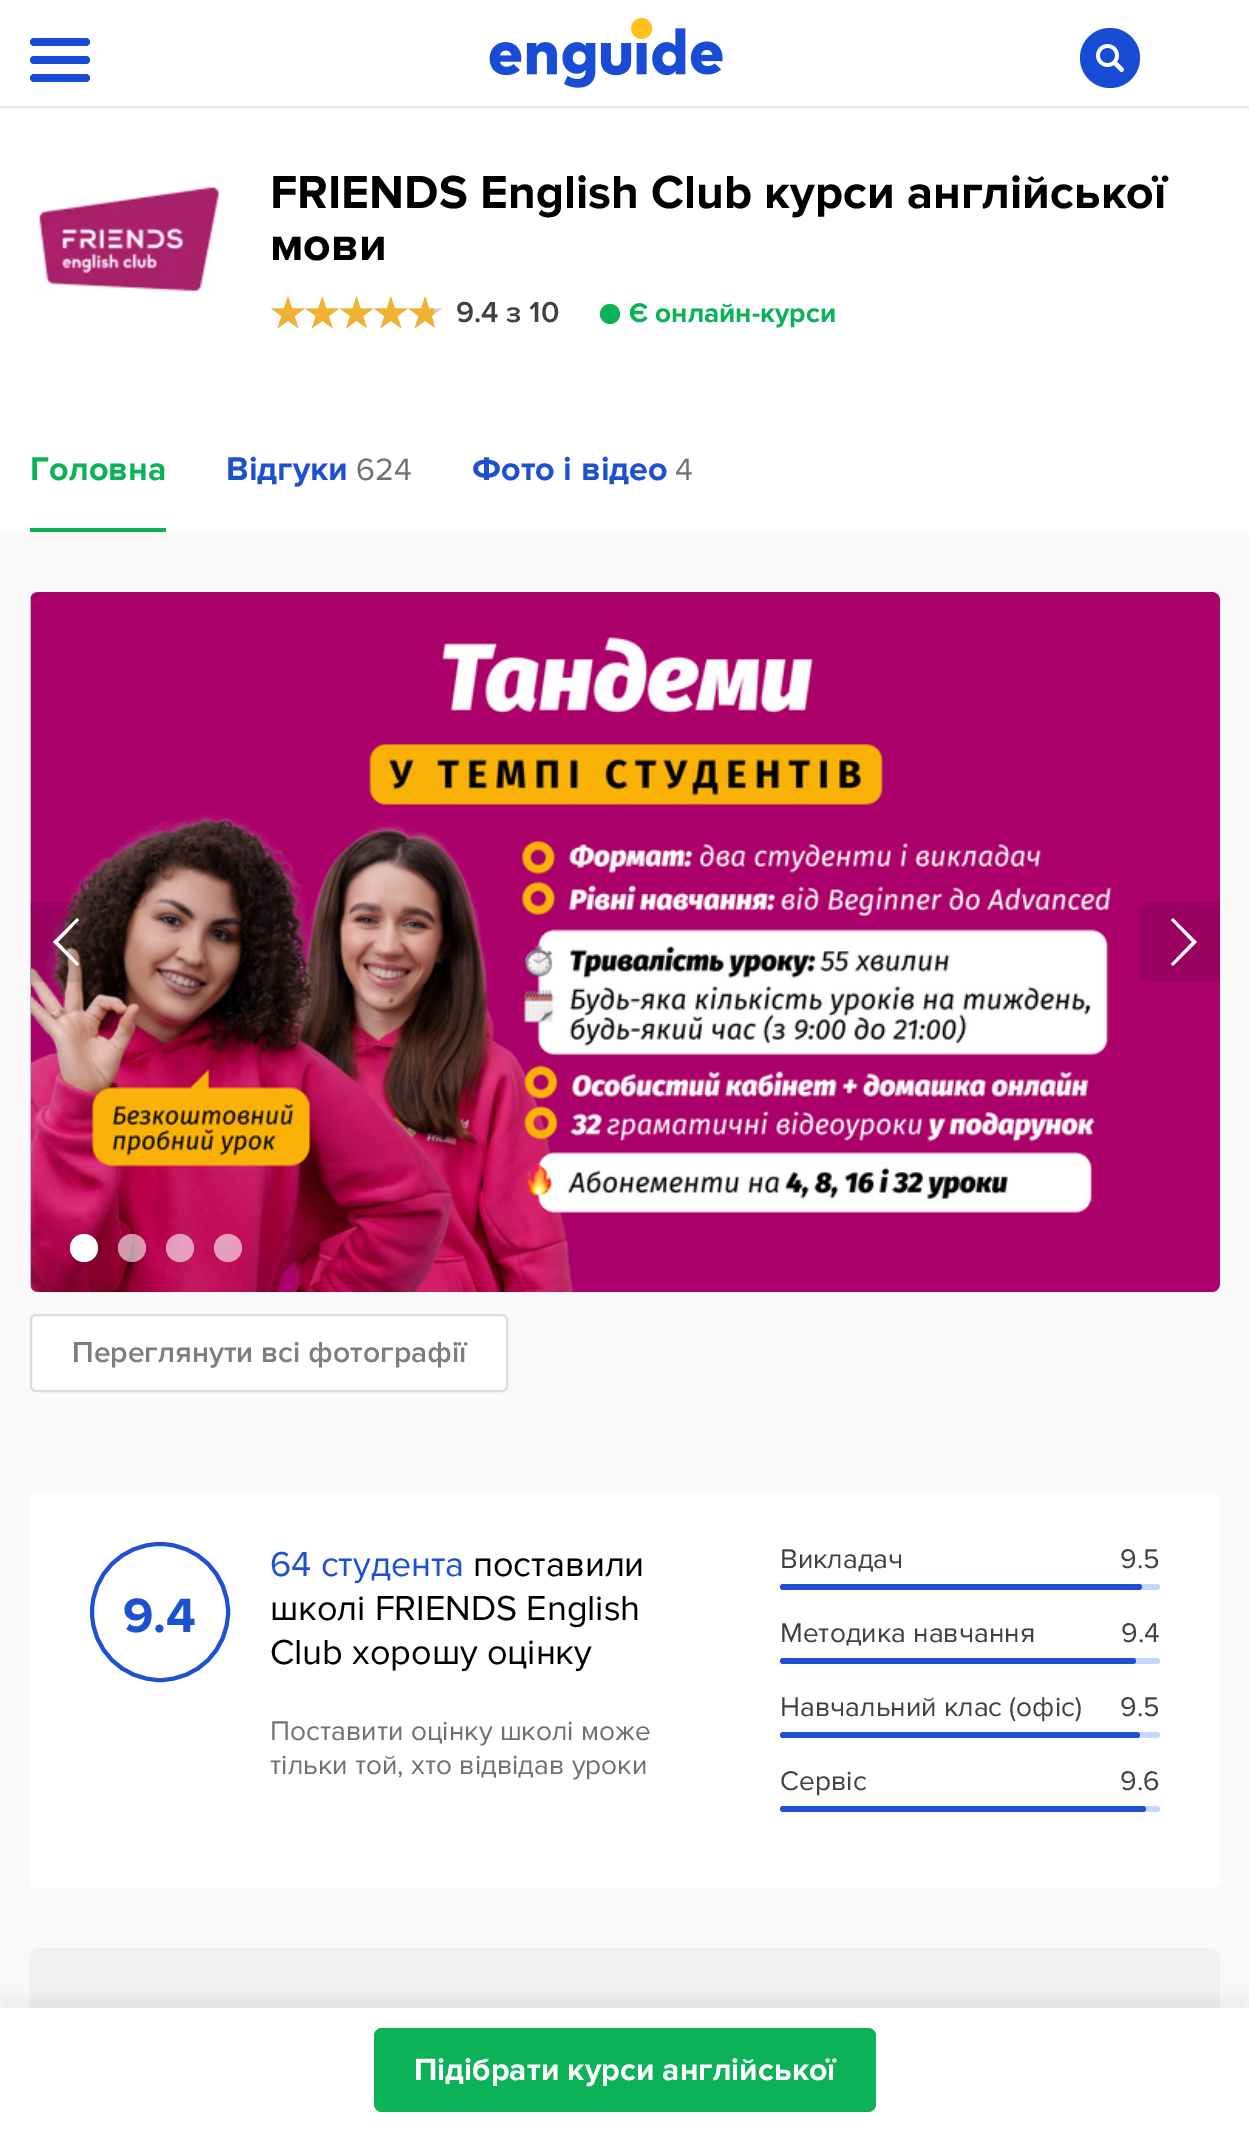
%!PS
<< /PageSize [1249 2132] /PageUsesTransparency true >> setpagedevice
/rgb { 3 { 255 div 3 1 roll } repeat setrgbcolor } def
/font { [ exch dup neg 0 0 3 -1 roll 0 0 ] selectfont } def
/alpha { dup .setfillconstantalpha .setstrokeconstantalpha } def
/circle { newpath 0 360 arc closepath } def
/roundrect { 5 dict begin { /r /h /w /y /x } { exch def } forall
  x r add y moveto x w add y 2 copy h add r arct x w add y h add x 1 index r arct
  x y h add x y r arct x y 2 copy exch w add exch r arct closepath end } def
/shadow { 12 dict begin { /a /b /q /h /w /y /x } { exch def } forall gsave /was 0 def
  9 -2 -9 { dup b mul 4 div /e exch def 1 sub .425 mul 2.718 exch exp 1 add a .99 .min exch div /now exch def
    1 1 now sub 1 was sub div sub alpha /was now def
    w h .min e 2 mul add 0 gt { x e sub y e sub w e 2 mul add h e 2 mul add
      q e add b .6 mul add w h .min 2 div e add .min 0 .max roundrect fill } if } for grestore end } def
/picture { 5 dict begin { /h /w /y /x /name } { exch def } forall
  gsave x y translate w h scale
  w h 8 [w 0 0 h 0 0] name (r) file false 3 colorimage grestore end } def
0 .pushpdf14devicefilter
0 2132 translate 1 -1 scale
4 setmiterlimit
255 255 255 rgb
0 0 1249 2132 rectfill
25 76 212 rgb
30 56 60 8 4 roundrect fill
30 38 60 8 4 roundrect fill
30 74 60 8 4 roundrect fill
(img/1.rgb) 489 18 234 70 picture
1110 58 30 circle fill
(img/2.rgb) 1096 44 28 28 picture
231 231 231 rgb
0 106 1249 2 rectfill
(img/3.rgb) 35 186 187 108 picture
(img/4.rgb) 271 296 171 33 picture
(img/5.rgb) 271 296 163 33 picture
11 178 88 rgb
610 314 10 circle fill
30 528 136 4 rectfill
249 249 249 rgb
0 532 1249 1476 rectfill
188 188 188 rgb
30 592 1190 700 8 roundrect fill
(img/6.rgb) 31 592 1189 700 picture
0.1 alpha
0 0 0 rgb
30 902 moveto 102 902 lineto 106.5 902 110 905.5 110 910 curveto 110 974 lineto 110 978.5 106.5 982 102 982 curveto 30 982 lineto closepath fill
1 alpha
255 255 255 rgb
79 920 moveto 77 918 lineto 53 942 lineto 77 966 lineto 79 964 lineto 58 942 lineto closepath fill
154 0 95 rgb
1148 902 moveto 1220 902 lineto 1220 982 lineto 1148 982 lineto 1143.5 982 1140 978.5 1140 974 curveto 1140 910 lineto 1140 905.5 1143.5 902 1148 902 curveto closepath fill
255 255 255 rgb
1171 964 moveto 1173 966 lineto 1197 942 lineto 1173 918 lineto 1171 920 lineto 1192 942 lineto closepath fill
84 1248 14 circle fill
0.6 alpha
132 1248 14 circle fill
180 1248 14 circle fill
228 1248 14 circle fill
1 alpha
31 1315 476 76 5 roundrect gsave fill grestore
221 219 212 rgb
2 setlinewidth
stroke
255 255 255 rgb
30 1492 1190 396 8 roundrect fill
30 81 209 rgb
4 setlinewidth
160 1612 68 circle stroke
198 214 255 rgb
780 1584 380 6 3 roundrect fill
30 81 209 rgb
780 1584 362 6 3 roundrect fill
198 214 255 rgb
780 1658 380 6 3 roundrect fill
30 81 209 rgb
780 1658 356 6 3 roundrect fill
198 214 255 rgb
780 1732 380 6 3 roundrect fill
30 81 209 rgb
780 1732 360 6 3 roundrect fill
198 214 255 rgb
780 1806 380 6 3 roundrect fill
30 81 209 rgb
780 1806 366 6 3 roundrect fill
242 241 241 rgb
30 1948 1190 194 10 roundrect fill
46 40 15 rgb
0 1996 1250 124 0 6 0.06 shadow
255 255 255 rgb
0 2008 1249 124 rectfill
11 178 88 rgb
374 2028 502 84 8 roundrect fill
/ProximaNova-Bold 48 font
0 0 0 rgb
270 208 moveto (FRIENDS English Club курси англійської) show
270 260 moveto (мови) show
/ProximaNova-SemiBold 30 font
65 65 65 rgb
456 322 moveto (9.4 з 10) show
/ProximaNova-Bold 28 font
11 178 88 rgb
629 322 moveto (Є онлайн-курси) show
/ProximaNova-Bold 34 font
30 480 moveto (Головна) show
30 81 209 rgb
226 480 moveto (Відгуки) show
/ProximaNova-Regular 32 font
112 112 112 rgb
356 480 moveto (624) show
/ProximaNova-Bold 34 font
30 81 209 rgb
472 480 moveto (Фото і відео) show
/ProximaNova-Regular 32 font
112 112 112 rgb
675 480 moveto (4) show
/ProximaNova-SemiBold 30 font
126 126 130 rgb
72 1362 moveto (Переглянути всі фотографії) show
/ProximaNova-Regular 36 font
30 81 209 rgb
270 1576 moveto (64 студента) show
0 0 0 rgb
473 1576 moveto (поставили) show
/ProximaNova-Bold 50 font
30 81 209 rgb
123 1632 moveto (9.4) show
/ProximaNova-Regular 36 font
0 0 0 rgb
270 1620 moveto (школі FRIENDS English) show
270 1664 moveto (Club хорошу оцінку) show
/ProximaNova-Regular 28 font
112 112 112 rgb
270 1740 moveto (Поставити оцінку школі може) show
270 1774 moveto (тільки той, хто відвідав уроки) show
65 65 65 rgb
[
  [(Викладач) 780 1568]
  [(9.5) 1120 1568]
  [(Методика навчання) 780 1642]
  [(9.4) 1121 1642]
  [(Навчальний клас \(офіс\)) 780 1716]
  [(9.5) 1120 1716]
  [(Сервіс) 780 1790]
  [(9.6) 1120 1790]
] { aload pop moveto show } forall
/ProximaNova-Bold 32 font
255 255 255 rgb
414 2080 moveto (Підібрати курси англійської) show
.poppdf14devicefilter showpage
